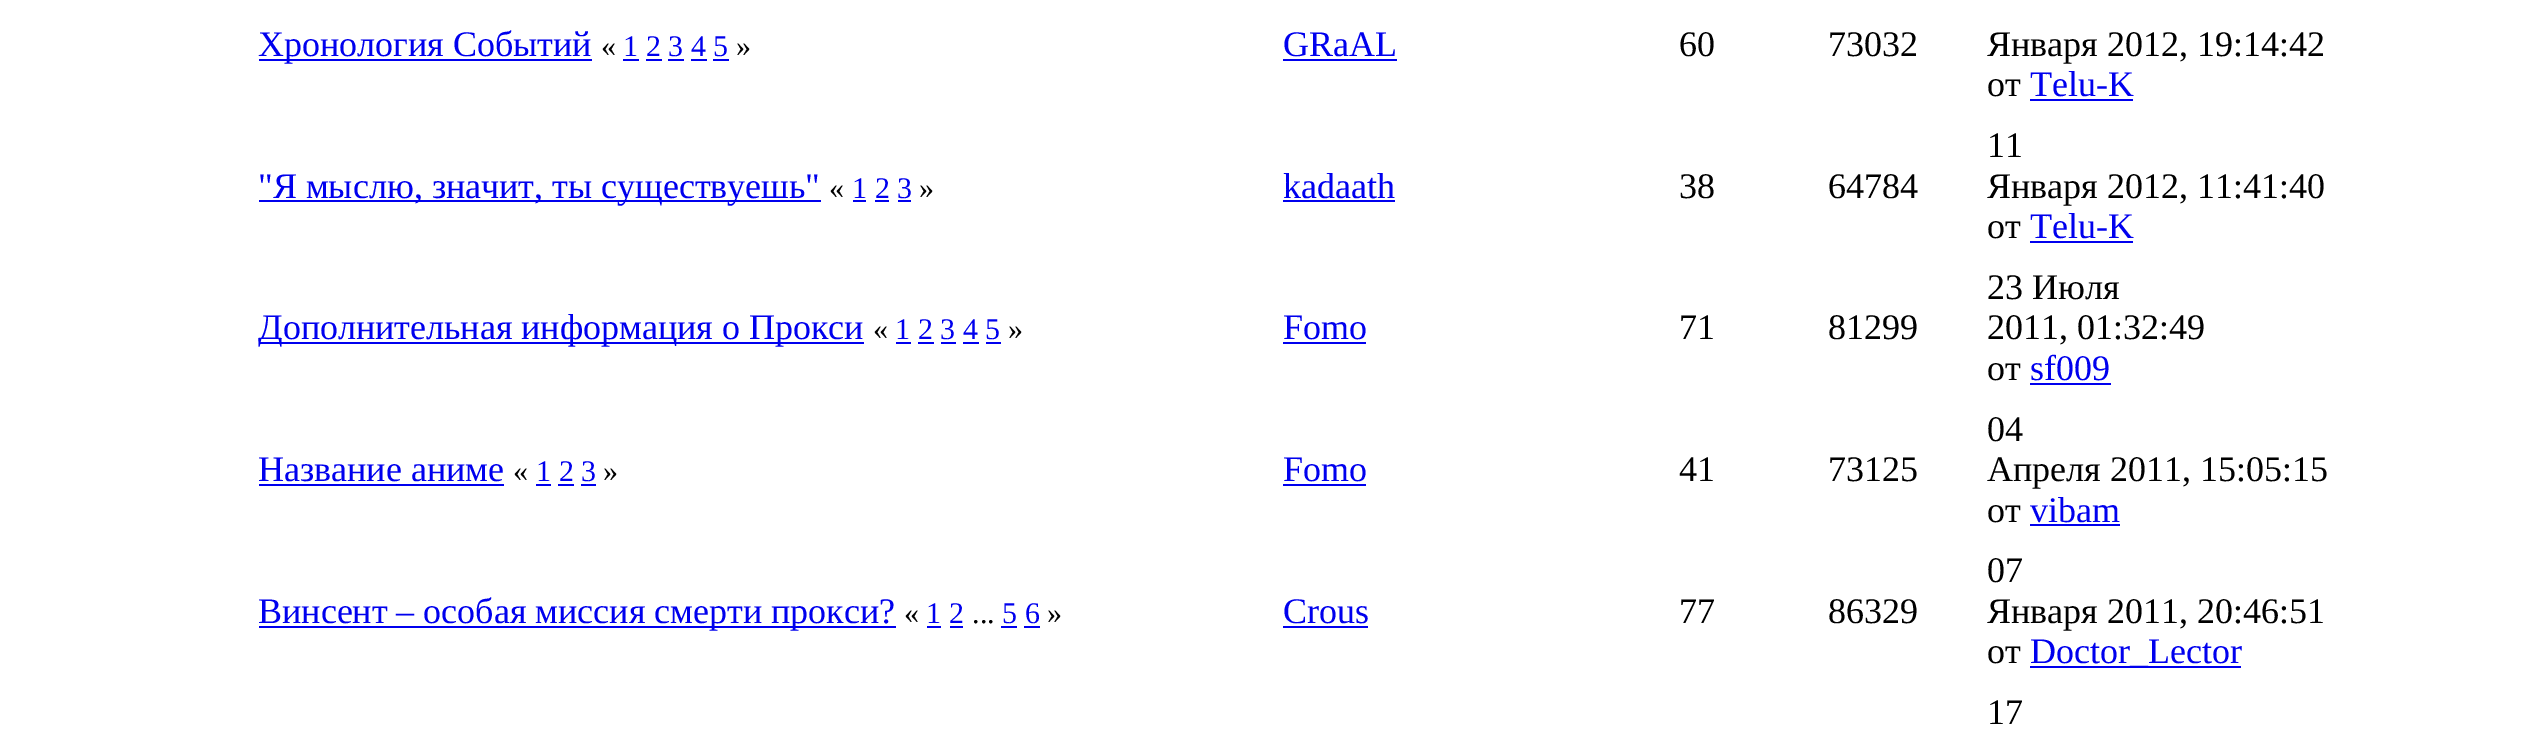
%!PS
<< /PageSize [2546 753] >> setpagedevice
/rgb { 3 { 255 div 3 1 roll } repeat setrgbcolor } def
/font { [ exch dup neg 0 0 3 -1 roll 0 0 ] selectfont } def
0 753 translate 1 -1 scale
4 setmiterlimit
255 255 255 rgb
0 0 2546 753 rectfill
[
  [259 59 333 2 0 0 238]
  [623 59 16 2 0 0 238]
  [646 59 16 2 0 0 238]
  [668 59 16 2 0 0 238]
  [691 59 16 2 0 0 238]
  [713 59 16 2 0 0 238]
  [1283 59 114 2 0 0 238]
  [2030 99 103 2 0 0 238]
  [259 200 562 2 0 0 238]
  [853 200 13 2 0 0 238]
  [875 200 14 2 0 0 238]
  [898 200 13 2 0 0 238]
  [1283 200 112 2 0 0 238]
  [2030 241 103 2 0 0 238]
  [259 342 605 2 0 0 238]
  [896 342 15 2 0 0 238]
  [918 342 16 2 0 0 238]
  [941 342 15 2 0 0 238]
  [963 342 16 2 0 0 238]
  [986 342 15 2 0 0 238]
  [1283 342 83 2 0 0 238]
  [2030 383 81 2 0 0 238]
  [259 484 245 2 0 0 238]
  [536 484 15 2 0 0 238]
  [558 484 16 2 0 0 238]
  [581 484 15 2 0 0 238]
  [1283 484 83 2 0 0 238]
  [2030 524 90 2 0 0 238]
  [259 626 637 2 0 0 238]
  [927 626 14 2 0 0 238]
  [950 626 13 2 0 0 238]
  [1001 626 16 2 0 0 238]
  [1024 626 16 2 0 0 238]
  [1283 626 85 2 0 0 238]
  [2030 666 211 2 0 0 238]
] { aload pop rgb rectfill } forall
/LiberationSerif-Regular 36 font
258 56 moveto (Хронология Событий) show
/LiberationSerif-Regular 30 font
0 0 0 rgb
601 56 moveto («) show
0 0 238 rgb
623 56 moveto (1 2 3 4 5) show
0 0 0 rgb
736 56 moveto (») show
/LiberationSerif-Regular 36 font
0 0 238 rgb
1283 56 moveto (GRaAL) show
0 0 0 rgb
[
  [(60) 1679 56]
  [(73032) 1828 56]
  [(Января 2012, 19:14:42) 1987 56]
  [(от) 1987 96]
] { aload pop moveto show } forall
0 0 238 rgb
2030 96 moveto (Telu-K) show
258 198 moveto ("Я мыслю, значит, ты существуешь") show
/LiberationSerif-Regular 30 font
0 0 0 rgb
829 198 moveto («) show
0 0 238 rgb
852 198 moveto (1 2 3) show
0 0 0 rgb
919 198 moveto (») show
/LiberationSerif-Regular 36 font
0 0 238 rgb
1283 198 moveto (kadaath) show
0 0 0 rgb
[
  [(38) 1679 198]
  [(64784) 1828 198]
  [(11) 1987 157]
  [(Января 2012, 11:41:40) 1987 198]
  [(от) 1987 238]
] { aload pop moveto show } forall
0 0 238 rgb
2030 238 moveto (Telu-K) show
258 339 moveto (Дополнительная информация о Прокси) show
/LiberationSerif-Regular 30 font
0 0 0 rgb
873 339 moveto («) show
0 0 238 rgb
895 339 moveto (1 2 3 4 5) show
0 0 0 rgb
1008 339 moveto (») show
/LiberationSerif-Regular 36 font
0 0 238 rgb
1283 339 moveto (Fomo) show
0 0 0 rgb
[
  [(71) 1679 339]
  [(81299) 1828 339]
  [(23 Июля) 1987 299]
  [(2011, 01:32:49) 1987 339]
  [(от) 1987 380]
] { aload pop moveto show } forall
0 0 238 rgb
2030 380 moveto (sf009) show
258 481 moveto (Название аниме) show
/LiberationSerif-Regular 30 font
0 0 0 rgb
513 481 moveto («) show
0 0 238 rgb
536 481 moveto (1 2 3) show
0 0 0 rgb
603 481 moveto (») show
/LiberationSerif-Regular 36 font
0 0 238 rgb
1283 481 moveto (Fomo) show
0 0 0 rgb
[
  [(41) 1679 481]
  [(73125) 1828 481]
  [(04) 1987 441]
  [(Апреля 2011, 15:05:15) 1987 481]
  [(от) 1987 522]
] { aload pop moveto show } forall
0 0 238 rgb
2030 522 moveto (vibam) show
258 623 moveto (Винсент – особая миссия смерти прокси?) show
/LiberationSerif-Regular 30 font
0 0 0 rgb
904 623 moveto («) show
0 0 238 rgb
926 623 moveto (1 2) show
0 0 0 rgb
972 623 moveto (...) show
0 0 238 rgb
1002 623 moveto (5 6) show
0 0 0 rgb
1047 623 moveto (») show
/LiberationSerif-Regular 36 font
0 0 238 rgb
1283 623 moveto (Crous) show
0 0 0 rgb
[
  [(77) 1679 623]
  [(86329) 1828 623]
  [(07) 1987 582]
  [(Января 2011, 20:46:51) 1987 623]
  [(от) 1987 663]
] { aload pop moveto show } forall
0 0 238 rgb
2030 663 moveto (Doctor_Lector) show
0 0 0 rgb
1987 724 moveto (17) show
showpage
